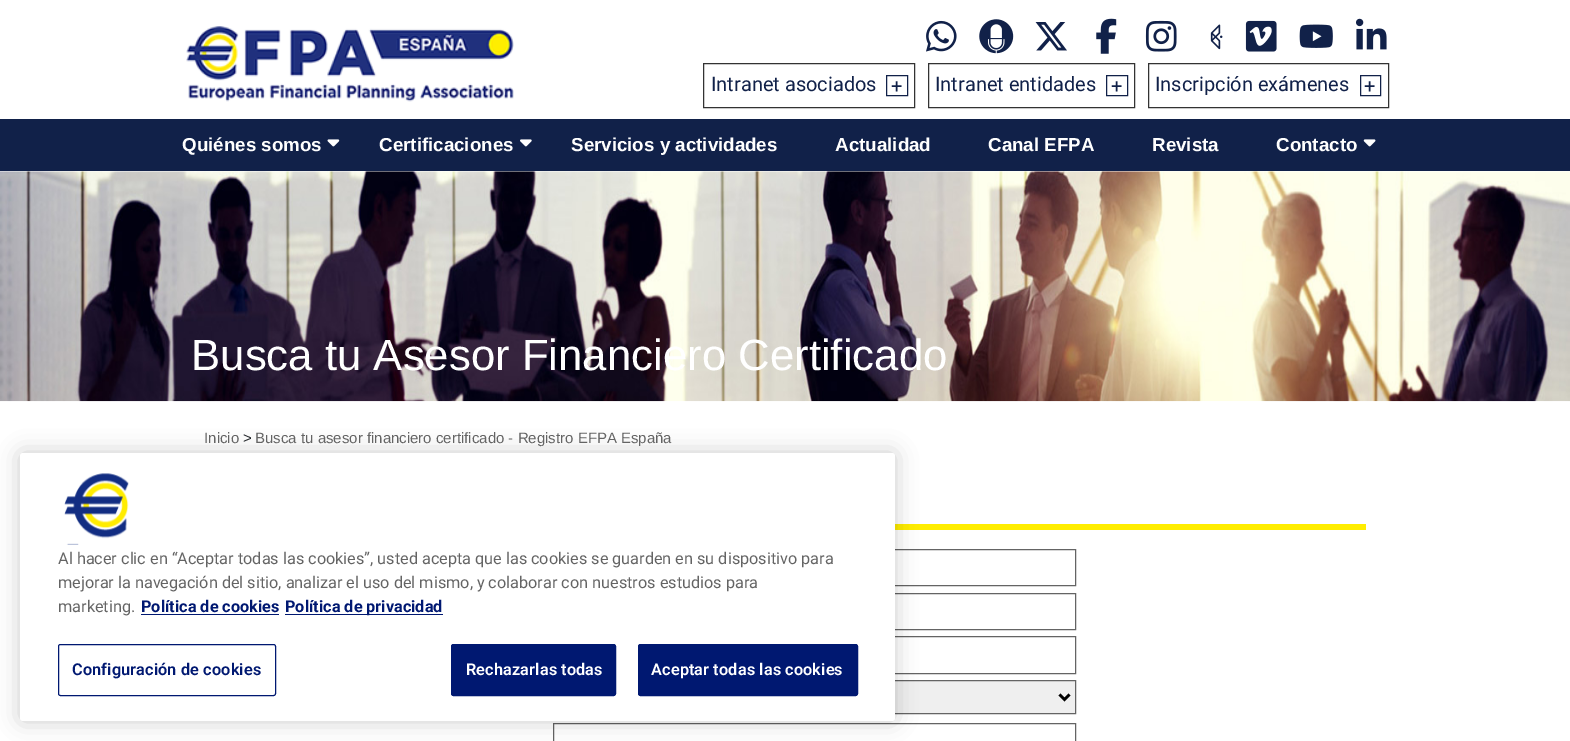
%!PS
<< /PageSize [1570 741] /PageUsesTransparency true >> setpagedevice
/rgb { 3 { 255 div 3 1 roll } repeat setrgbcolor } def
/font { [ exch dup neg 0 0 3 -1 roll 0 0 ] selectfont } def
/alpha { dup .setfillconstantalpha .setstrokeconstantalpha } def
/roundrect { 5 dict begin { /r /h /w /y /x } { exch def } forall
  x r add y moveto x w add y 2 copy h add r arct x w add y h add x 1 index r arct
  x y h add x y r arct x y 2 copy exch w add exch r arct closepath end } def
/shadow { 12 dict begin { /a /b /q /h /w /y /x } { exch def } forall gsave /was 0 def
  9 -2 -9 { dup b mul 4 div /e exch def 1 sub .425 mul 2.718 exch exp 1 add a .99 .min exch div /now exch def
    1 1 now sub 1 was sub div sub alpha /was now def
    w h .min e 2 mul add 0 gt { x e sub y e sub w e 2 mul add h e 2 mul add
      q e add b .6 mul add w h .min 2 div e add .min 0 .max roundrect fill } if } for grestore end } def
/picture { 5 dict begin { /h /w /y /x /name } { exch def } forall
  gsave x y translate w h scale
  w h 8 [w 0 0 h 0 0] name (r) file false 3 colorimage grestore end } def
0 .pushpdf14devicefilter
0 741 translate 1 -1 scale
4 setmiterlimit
255 255 255 rgb
0 0 1570 741 rectfill
(img/1.rgb) 186 26 328 76 picture
(img/2.rgb) 926 20 31 32 picture
(img/3.rgb) 979 19 35 35 picture
(img/4.rgb) 1035 22 32 29 picture
(img/5.rgb) 1096 18 21 36 picture
(img/6.rgb) 1145 20 32 32 picture
(img/7.rgb) 1210 24 13 26 picture
(img/8.rgb) 1245 20 32 32 picture
(img/9.rgb) 1299 24 34 24 picture
(img/10.rgb) 1356 18 31 32 picture
51 51 51 rgb
703.5 63.5 211 44 rectstroke
17 33 73 rgb
886.5 75.5 21 20 rectstroke
51 51 51 rgb
928.5 63.5 206 44 rectstroke
17 33 73 rgb
1106.5 75.5 21 20 rectstroke
51 51 51 rgb
1148.5 63.5 240 44 rectstroke
17 33 73 rgb
1360.5 75.5 20 20 rectstroke
0 119 1570 52 rectfill
(img/11.rgb) 327 139 13 8 picture
(img/12.rgb) 520 139 12 8 picture
(img/13.rgb) 1363 139 13 8 picture
(img/14.rgb) 0 171 1570 231 picture
255 237 0 rgb
895 524 471 6 rectfill
100 100 100 rgb
553.5 549.5 522 36 rectstroke
553.5 593.5 522 36 rectstroke
553.5 636.5 522 37 rectstroke
239 239 239 rgb
895 681 180 32 rectfill
100 100 100 rgb
553.5 680.5 522 33 rectstroke
0 0 0 rgb
2.5 setlinewidth
1059.5 694.5 moveto 1064.5 699.5 lineto 1069.5 694.5 lineto stroke
100 100 100 rgb
1 setlinewidth
553.5 723.5 522 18 rectstroke
0 0 0 rgb
20 453 875 268 3 11 0.2 shadow
255 255 255 rgb
20 453 875 268 3 roundrect fill
0 24 113 rgb
141 614 138 1 rectfill
285 614 158 1 rectfill
(img/15.rgb) 64 473 65 72 picture
58.5 644.5 217 51 2 roundrect stroke
451.5 644.5 164 51 2 roundrect gsave fill grestore
stroke
638.5 644.5 219 51 2 roundrect gsave fill grestore
stroke
/Roboto-Regular 20 font
17 33 73 rgb
[
  [(Intranet asociados) 711 91]
  [(+) 891 93]
  [(Intranet entidades) 935 91]
  [(+) 1111 93]
  [(Inscripción exámenes) 1155 91]
  [(+) 1364 93]
] { aload pop moveto show } forall
/LiberationSans-Bold 18.75 font
255 255 255 rgb
[
  [(Quiénes somos) 182 151]
  [(Certificaciones) 379 151]
  [(Servicios y actividades) 571 151]
  [(Actualidad) 835 151]
  [(Canal EFPA) 988 151]
  [(Revista) 1152 151]
  [(Contacto) 1276 151]
] { aload pop moveto show } forall
/LiberationSans-Regular 43.75 font
191 370 moveto (Busca tu Asesor Financiero Certificado) show
/LiberationSans-Regular 15 font
100 100 100 rgb
204 443 moveto (Inicio) show
33 37 41 rgb
243 443 moveto (>) show
100 100 100 rgb
255 443 moveto (Busca tu asesor financiero certificado - Registro EFPA España) show
/Roboto-Regular 16.25 font
[
  [(Al hacer clic en “Aceptar todas las cookies”, usted acepta que las cookies se guarden en su dispositivo para) 58 564]
  [(mejorar la navegación del sitio, analizar el uso del mismo, y colaborar con nuestros estudios para) 58 588]
  [(marketing.) 58 612]
] { aload pop moveto show } forall
/Roboto-Bold 16.25 font
0 24 113 rgb
141 612 moveto (Política de cookies) show
285 612 moveto (Política de privacidad) show
/Roboto-SemiBold 16.25 font
72 675 moveto 0.15 0 (Configuración de cookies) ashow
255 255 255 rgb
466 675 moveto 0.15 0 (Rechazarlas todas) ashow
651 675 moveto 0.15 0 (Aceptar todas las cookies) ashow
.poppdf14devicefilter showpage
